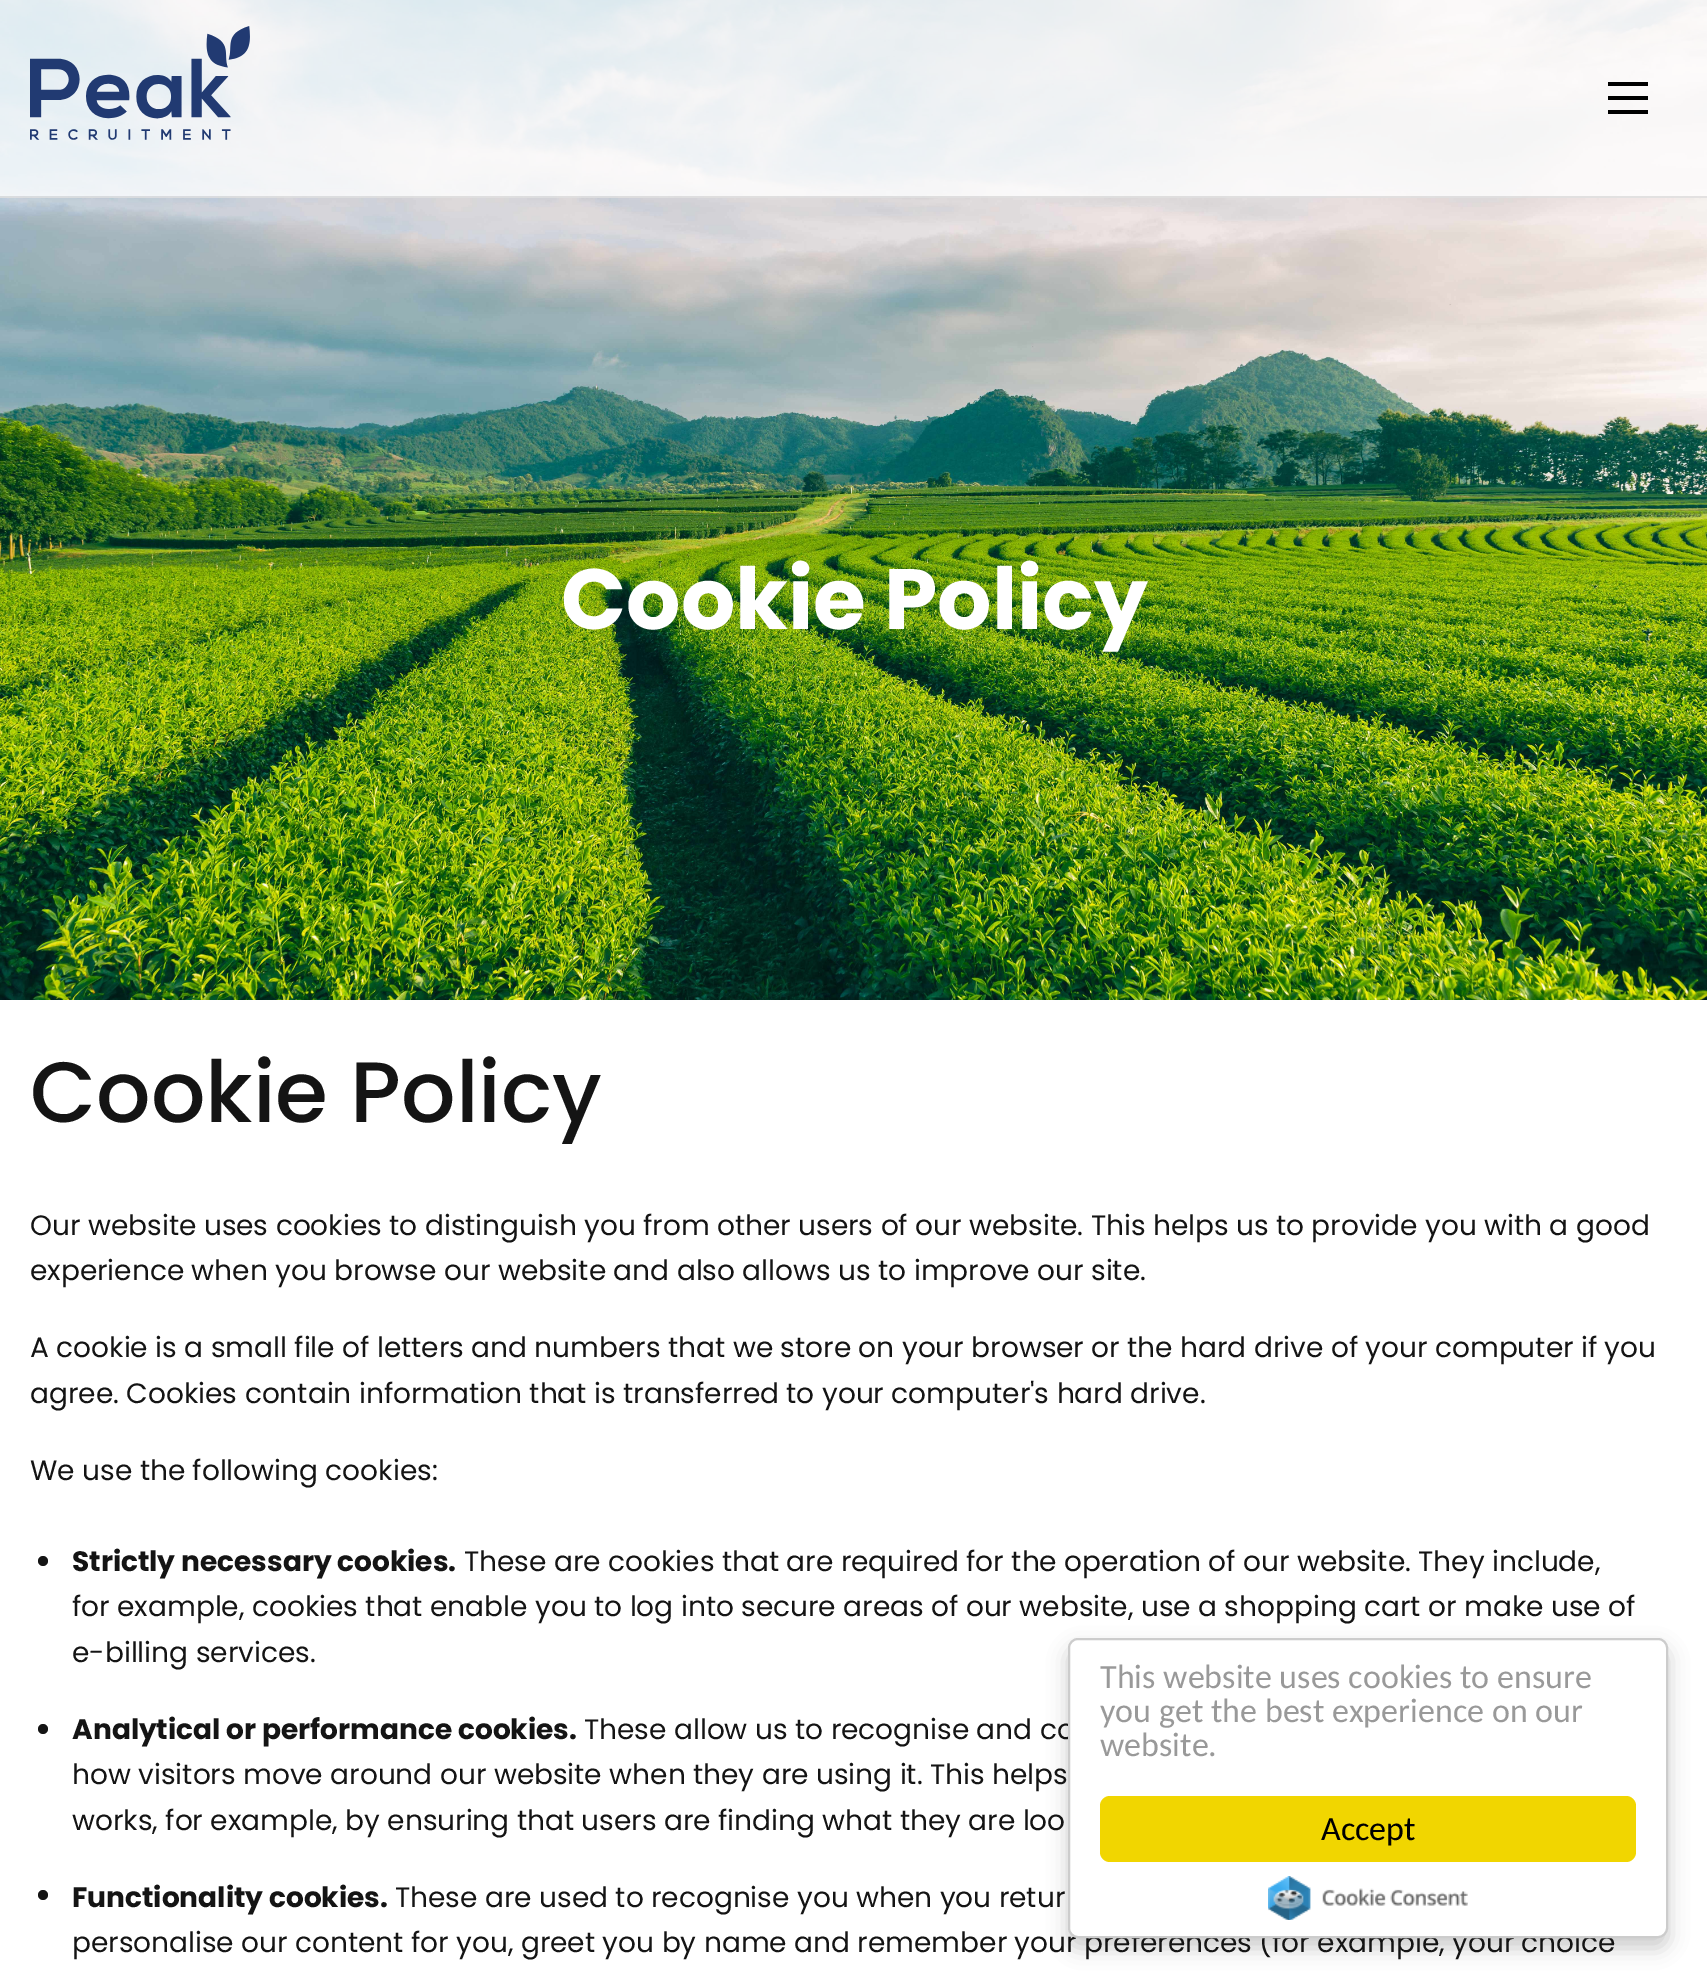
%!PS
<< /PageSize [1707 1978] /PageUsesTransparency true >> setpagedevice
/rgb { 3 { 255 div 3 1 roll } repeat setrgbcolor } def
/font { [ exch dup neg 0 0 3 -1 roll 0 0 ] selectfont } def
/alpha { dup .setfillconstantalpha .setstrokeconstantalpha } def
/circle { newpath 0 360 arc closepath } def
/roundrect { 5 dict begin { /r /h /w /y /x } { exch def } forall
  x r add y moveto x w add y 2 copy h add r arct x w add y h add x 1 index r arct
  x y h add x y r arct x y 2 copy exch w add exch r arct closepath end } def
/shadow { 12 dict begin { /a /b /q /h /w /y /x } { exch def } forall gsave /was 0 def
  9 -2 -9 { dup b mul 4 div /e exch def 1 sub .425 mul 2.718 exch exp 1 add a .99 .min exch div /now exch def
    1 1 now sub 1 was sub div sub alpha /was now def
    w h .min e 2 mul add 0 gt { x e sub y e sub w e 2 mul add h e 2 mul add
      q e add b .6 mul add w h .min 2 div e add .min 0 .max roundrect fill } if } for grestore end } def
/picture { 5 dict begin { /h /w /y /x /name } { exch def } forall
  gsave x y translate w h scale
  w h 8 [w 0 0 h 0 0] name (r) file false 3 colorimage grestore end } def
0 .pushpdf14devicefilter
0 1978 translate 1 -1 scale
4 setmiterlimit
255 255 255 rgb
0 0 1707 1978 rectfill
(img/2.rgb) 0 0 1707 1000 picture
0.8 alpha
0 0 1707 198 rectfill
0.1 alpha
0 0 0 rgb
0 196 1707 2 rectfill
1 alpha
(img/1.rgb) 30 26 220 114 picture
[
  [1608 96 40 4 0 0 0]
  [1608 82 40 4 0 0 0]
  [1608 110 40 4 0 0 0]
] { aload pop rgb rectfill } forall
20 20 20 rgb
43 1561 5 circle fill
43 1729 5 circle fill
43 1895 5 circle fill
0 0 0 rgb
1068 1648 600 300 10 10 0.2 shadow
/Poppins-Bold 85.5 font
255 255 255 rgb
561 629 moveto (Cookie Policy) show
/Poppins-Medium 85.5 font
20 20 20 rgb
30 1122 moveto (Cookie Policy) show
/Poppins-Regular 28 font
[
  [(Our website uses cookies to distinguish you from other users of our website. This helps us to provide you with a good) 30 1235]
  [(experience when you browse our website and also allows us to improve our site.) 30 1280]
  [(A cookie is a small file of letters and numbers that we store on your browser or the hard drive of your computer if you) 30 1357]
  [(agree. Cookies contain information that is transferred to your computer's hard drive.) 30 1403]
  [(We use the following cookies:) 30 1480]
] { aload pop moveto show } forall
/Poppins-Bold 28 font
72 1571 moveto (Strictly necessary cookies.) show
/Poppins-Regular 28 font
[
  [(These are cookies that are required for the operation of our website. They include,) 464 1571]
  [(for example, cookies that enable you to log into secure areas of our website, use a shopping cart or make use of) 72 1616]
  [(e-billing services.) 72 1662]
] { aload pop moveto show } forall
/Poppins-Bold 28 font
72 1739 moveto (Analytical or performance cookies.) show
/Poppins-Regular 28 font
[
  [(These allow us to recognise and co) 584 1739]
  [(how visitors move around our website when they are using it. This helps) 72 1784]
  [(works, for example, by ensuring that users are finding what they are loo) 72 1830]
] { aload pop moveto show } forall
/Poppins-Bold 28 font
72 1907 moveto (Functionality cookies.) show
/Poppins-Regular 28 font
395 1907 moveto (These are used to recognise you when you retur) show
72 1952 moveto (personalise our content for you, greet you by name and remember your preferences \(for example, your choice) show
255 255 255 rgb
1069 1639 598 298 9 roundrect gsave fill grestore
204 204 204 rgb
2 setlinewidth
stroke
/Carlito-Regular 34 font
153 153 153 rgb
[
  [(This website uses cookies to ensure) 1100 1688]
  [(you get the best experience on our) 1100 1722]
  [(website.) 1100 1756]
] { aload pop moveto show } forall
241 214 0 rgb
1100 1796 536 66 10 roundrect fill
0 0 0 rgb
1321 1840 moveto (Accept) show
(img/3.rgb) 1268 1876 200 44 picture
.poppdf14devicefilter showpage
